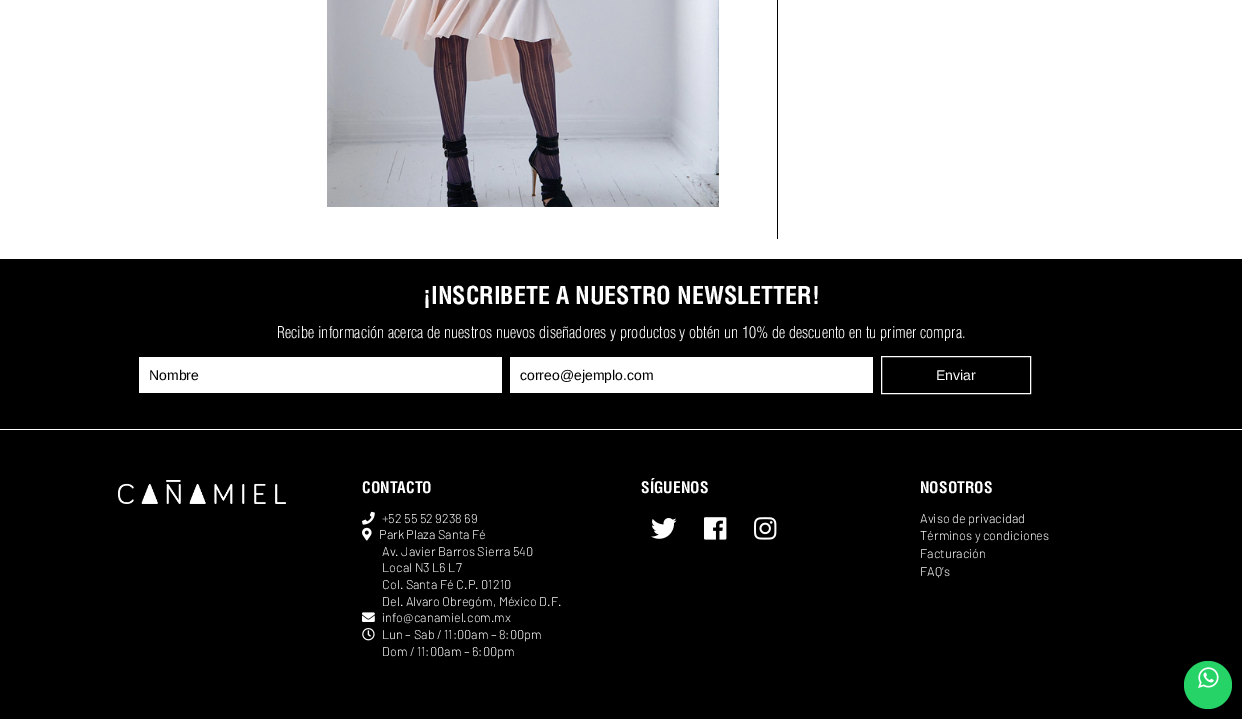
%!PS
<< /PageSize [1242 719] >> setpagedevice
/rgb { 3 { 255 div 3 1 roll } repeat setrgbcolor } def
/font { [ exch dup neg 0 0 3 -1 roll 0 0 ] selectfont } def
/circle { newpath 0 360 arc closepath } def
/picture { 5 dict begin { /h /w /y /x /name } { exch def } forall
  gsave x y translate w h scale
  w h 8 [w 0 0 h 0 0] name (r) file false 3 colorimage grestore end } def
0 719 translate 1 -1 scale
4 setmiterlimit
255 255 255 rgb
0 0 1242 719 rectfill
(img/1.rgb) 327 0 392 207 picture
[
  [777 0 1 239 0 0 0]
  [0 259 1242 170 0 0 0]
  [139 357 363 36 255 255 255]
  [510 357 363 36 255 255 255]
] { aload pop rgb rectfill } forall
881.5 356.5 149 37 rectstroke
0 0 0 rgb
0 430 1242 289 rectfill
(img/2.rgb) 118 480 168 24 picture
(img/3.rgb) 362 511 13 14 picture
(img/4.rgb) 362 527 10 14 picture
(img/5.rgb) 362 612 13 10 picture
(img/6.rgb) 362 628 13 13 picture
(img/7.rgb) 651 518 26 21 picture
(img/8.rgb) 704 517 23 23 picture
(img/9.rgb) 754 517 23 23 picture
37 211 102 rgb
1208 685 24 circle fill
(img/10.rgb) 1198 667 21 21 picture
/Helvetica-Bold 24 font
255 255 255 rgb
423 304 moveto (¡INSCRIBETE A NUESTRO NEWSLETTER!) show
/Helvetica-Light 16 font
277 338 moveto (Recibe información acerca de nuestros nuevos diseñadores y productos y obtén un 10% de descuento en tu primer compra.) show
/LiberationSans-Regular 14 font
0 0 0 rgb
149 380 moveto (Nombre) show
520 380 moveto (correo@ejemplo.com) show
255 255 255 rgb
936 380 moveto (Enviar) show
/Helvetica-Bold 15.5 font
362 493 moveto (CONTACTO) show
/Barlow-Light 12.75 font
[
  [(+52 55 52 9238 69) 382 523]
  [(Park Plaza Santa Fé) 379 539]
  [(Av. Javier Barros Sierra 540) 382 556]
  [(Local N3 L6 L7) 382 572]
  [(Col. Santa Fé C.P. 01210) 382 589]
  [(Del. Alvaro Obregóm, México D.F.) 382 606]
  [(info@canamiel.com.mx) 382 622]
  [(Lun – Sab / 11:00am – 8:00pm) 382 639]
  [(Dom / 11:00am – 6:00pm) 382 656]
] { aload pop moveto show } forall
/Helvetica-Bold 15.5 font
641 493 moveto (SÍGUENOS) show
920 493 moveto (NOSOTROS) show
/Barlow-Light 12.75 font
[
  [(Aviso de privacidad) 920 523]
  [(Términos y condiciones) 920 540]
  [(Facturación) 920 558]
  [(FAQ’s) 920 576]
] { aload pop moveto show } forall
showpage
